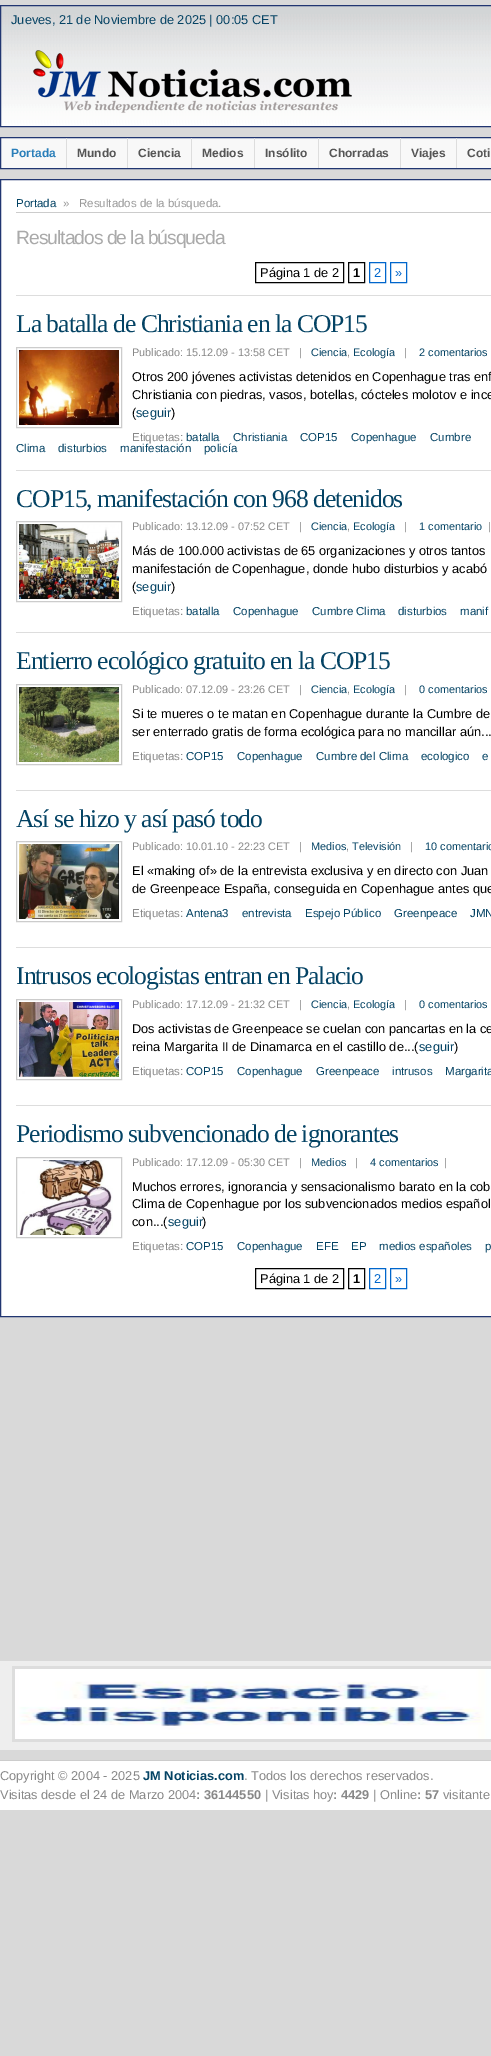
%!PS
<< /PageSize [491 2056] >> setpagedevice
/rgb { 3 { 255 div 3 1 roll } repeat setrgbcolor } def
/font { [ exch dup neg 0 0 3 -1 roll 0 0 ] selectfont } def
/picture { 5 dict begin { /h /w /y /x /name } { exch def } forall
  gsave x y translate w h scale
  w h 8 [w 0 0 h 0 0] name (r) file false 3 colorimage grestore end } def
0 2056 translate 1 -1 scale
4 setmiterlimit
217 217 217 rgb
0 0 491 2056 rectfill
(img/1.rgb) 1 6 490 120 picture
33 54 113 rgb
0.5 5.5 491 121 rectstroke
(img/2.rgb) 33 50 319 63 picture
248 248 248 rgb
0.5 137.5 moveto 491.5 137.5 lineto 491.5 168.5 lineto 0.5 168.5 lineto closepath gsave fill grestore
33 54 113 rgb
stroke
[
  [66 138 1 30 221 221 221]
  [127 138 1 30 221 221 221]
  [191 138 1 30 221 221 221]
  [254 138 1 30 221 221 221]
  [318 138 1 30 221 221 221]
  [400 138 1 30 221 221 221]
  [456 138 1 30 221 221 221]
] { aload pop rgb rectfill } forall
255 255 255 rgb
0.5 179.5 moveto 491.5 179.5 lineto 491.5 1316.5 lineto 0.5 1316.5 lineto closepath gsave fill grestore
33 54 113 rgb
stroke
204 204 204 rgb
16 212 475 1 rectfill
0 0 0 rgb
255.5 262.5 88 20 rectstroke
348.5 262.5 16 20 rectstroke
0 102 204 rgb
369.5 262.5 16 20 rectstroke
390.5 262.5 16 20 rectstroke
221 221 221 rgb
16 295 475 1 rectfill
204 204 204 rgb
16.5 347.5 105 80 rectstroke
(img/3.rgb) 19 350 100 75 picture
221 221 221 rgb
16 470 475 1 rectfill
204 204 204 rgb
16.5 521.5 105 80 rectstroke
(img/4.rgb) 19 524 100 75 picture
221 221 221 rgb
16 632 475 1 rectfill
204 204 204 rgb
16.5 684.5 105 80 rectstroke
(img/5.rgb) 19 687 100 75 picture
221 221 221 rgb
16 790 475 1 rectfill
204 204 204 rgb
16.5 841.5 105 80 rectstroke
(img/6.rgb) 19 844 100 75 picture
221 221 221 rgb
16 947 475 1 rectfill
204 204 204 rgb
16.5 999.5 105 80 rectstroke
(img/7.rgb) 19 1002 100 75 picture
221 221 221 rgb
16 1105 475 1 rectfill
204 204 204 rgb
16.5 1157.5 105 80 rectstroke
(img/8.rgb) 19 1160 94 75 picture
0 0 0 rgb
255.5 1268.5 88 20 rectstroke
348.5 1268.5 16 20 rectstroke
0 102 204 rgb
369.5 1268.5 16 20 rectstroke
390.5 1268.5 16 20 rectstroke
238 238 238 rgb
0 1661 491 89 rectfill
221 221 221 rgb
12 1666 479 76 rectfill
(img/9.rgb) 15 1669 476 70 picture
255 255 255 rgb
0 1761 491 49 rectfill
204 204 204 rgb
0 1760 491 1 rectfill
/LiberationSans-Regular 12.8 font
4 67 100 rgb
11 24 moveto (Jueves, 21 de Noviembre de 2025 | 00:05 CET) show
/LiberationSans-Bold 12 font
41 126 185 rgb
11 157 moveto (Portada) show
85 85 85 rgb
[
  [(Mundo) 77 157]
  [(Ciencia) 138 157]
  [(Medios) 202 157]
  [(Insólito) 265 157]
  [(Chorradas) 329 157]
  [(Viajes) 411 157]
  [(Coti) 467 157]
] { aload pop moveto show } forall
/LiberationSans-Regular 11.5 font
4 67 100 rgb
16 207 moveto (Portada) show
153 153 153 rgb
63 207 moveto (»   Resultados de la búsqueda.) show
/LiberationSans-Regular 19.25 font
170 170 170 rgb
16 244 moveto -1 0 (Resultados de la búsqueda) ashow
/LiberationSans-Regular 12.8 font
0 0 0 rgb
260 277 moveto (Página 1 de 2) show
/LiberationSans-Bold 12.8 font
353 277 moveto (1) show
/LiberationSans-Regular 12.8 font
0 102 204 rgb
374 277 moveto (2) show
395 277 moveto (») show
/LiberationSerif-Regular 25.6 font
4 67 100 rgb
16 332 moveto -1 0 (La batalla de Christiania en la COP15) ashow
/LiberationSans-Regular 10.9 font
136 136 136 rgb
132 356 moveto (Publicado: 15.12.09 - 13:58 CET   |) show
4 67 100 rgb
311 356 moveto (Ciencia) show
136 136 136 rgb
347 356 moveto (,) show
4 67 100 rgb
353 356 moveto (Ecología) show
136 136 136 rgb
404 356 moveto (|) show
4 67 100 rgb
419 356 moveto (2 comentarios) show
/LiberationSans-Regular 12.8 font
0 0 0 rgb
[
  [(Otros 200 jóvenes activistas detenidos en Copenhague tras enf) 132 381]
  [(Christiania con piedras, vasos, botellas, cócteles molotov e ince) 132 399]
  [(\() 132 417]
] { aload pop moveto show } forall
4 67 100 rgb
136 417 moveto (seguir) show
0 0 0 rgb
171 417 moveto (\)) show
/LiberationSans-Regular 11.5 font
136 136 136 rgb
132 441 moveto (Etiquetas:) show
4 67 100 rgb
[
  [(batalla) 186 441]
  [(Christiania) 233 441]
  [(COP15) 300 441]
  [(Copenhague) 351 441]
  [(Cumbre) 430 441]
  [(Clima) 16 452]
  [(disturbios) 58 452]
  [(manifestación) 120 452]
  [(policía) 204 452]
] { aload pop moveto show } forall
/LiberationSerif-Regular 25.6 font
16 507 moveto -1 0 (COP15, manifestación con 968 detenidos) ashow
/LiberationSans-Regular 10.9 font
136 136 136 rgb
132 530 moveto (Publicado: 13.12.09 - 07:52 CET   |) show
4 67 100 rgb
311 530 moveto (Ciencia) show
136 136 136 rgb
347 530 moveto (,) show
4 67 100 rgb
353 530 moveto (Ecología) show
136 136 136 rgb
404 530 moveto (|) show
4 67 100 rgb
419 530 moveto (1 comentario) show
136 136 136 rgb
488 530 moveto (|) show
/LiberationSans-Regular 12.8 font
0 0 0 rgb
[
  [(Más de 100.000 activistas de 65 organizaciones y otros tantos) 132 555]
  [(manifestación de Copenhague, donde hubo disturbios y acabó) 132 573]
  [(\() 132 591]
] { aload pop moveto show } forall
4 67 100 rgb
136 591 moveto (seguir) show
0 0 0 rgb
171 591 moveto (\)) show
/LiberationSans-Regular 11.5 font
136 136 136 rgb
132 615 moveto (Etiquetas:) show
4 67 100 rgb
[
  [(batalla) 186 615]
  [(Copenhague) 233 615]
  [(Cumbre Clima) 312 615]
  [(disturbios) 398 615]
  [(manif) 460 615]
] { aload pop moveto show } forall
/LiberationSerif-Regular 25.6 font
16 669 moveto -1 0 (Entierro ecológico gratuito en la COP15) ashow
/LiberationSans-Regular 10.9 font
136 136 136 rgb
132 693 moveto (Publicado: 07.12.09 - 23:26 CET   |) show
4 67 100 rgb
311 693 moveto (Ciencia) show
136 136 136 rgb
347 693 moveto (,) show
4 67 100 rgb
353 693 moveto (Ecología) show
136 136 136 rgb
404 693 moveto (|) show
4 67 100 rgb
419 693 moveto (0 comentarios) show
/LiberationSans-Regular 12.8 font
0 0 0 rgb
132 718 moveto (Si te mueres o te matan en Copenhague durante la Cumbre de) show
132 736 moveto (ser enterrado gratis de forma ecológica para no mancillar aún...) show
/LiberationSans-Regular 11.5 font
136 136 136 rgb
132 760 moveto (Etiquetas:) show
4 67 100 rgb
[
  [(COP15) 186 760]
  [(Copenhague) 237 760]
  [(Cumbre del Clima) 316 760]
  [(ecologico) 421 760]
  [(e) 482 760]
] { aload pop moveto show } forall
/LiberationSerif-Regular 25.6 font
16 827 moveto -1 0 (Así se hizo y así pasó todo) ashow
/LiberationSans-Regular 10.9 font
136 136 136 rgb
132 850 moveto (Publicado: 10.01.10 - 22:23 CET   |) show
4 67 100 rgb
311 850 moveto (Medios) show
136 136 136 rgb
346 850 moveto (,) show
4 67 100 rgb
352 850 moveto (Televisión) show
136 136 136 rgb
410 850 moveto (|) show
4 67 100 rgb
425 850 moveto (10 comentario) show
/LiberationSans-Regular 12.8 font
0 0 0 rgb
132 875 moveto (El «making of» de la entrevista exclusiva y en directo con Juan) show
132 893 moveto (de Greenpeace España, conseguida en Copenhague antes que) show
/LiberationSans-Regular 11.5 font
136 136 136 rgb
132 917 moveto (Etiquetas:) show
4 67 100 rgb
[
  [(Antena3) 186 917]
  [(entrevista) 242 917]
  [(Espejo Público) 305 917]
  [(Greenpeace) 394 917]
  [(JMN) 470 917]
] { aload pop moveto show } forall
/LiberationSerif-Regular 25.6 font
16 984 moveto -1 0 (Intrusos ecologistas entran en Palacio) ashow
/LiberationSans-Regular 10.9 font
136 136 136 rgb
132 1008 moveto (Publicado: 17.12.09 - 21:32 CET   |) show
4 67 100 rgb
311 1008 moveto (Ciencia) show
136 136 136 rgb
347 1008 moveto (,) show
4 67 100 rgb
353 1008 moveto (Ecología) show
136 136 136 rgb
404 1008 moveto (|) show
4 67 100 rgb
419 1008 moveto (0 comentarios) show
/LiberationSans-Regular 12.8 font
0 0 0 rgb
132 1033 moveto (Dos activistas de Greenpeace se cuelan con pancartas en la ce) show
132 1051 moveto (reina Margarita II de Dinamarca en el castillo de...\() show
4 67 100 rgb
419 1051 moveto (seguir) show
0 0 0 rgb
454 1051 moveto (\)) show
/LiberationSans-Regular 11.5 font
136 136 136 rgb
132 1075 moveto (Etiquetas:) show
4 67 100 rgb
[
  [(COP15) 186 1075]
  [(Copenhague) 237 1075]
  [(Greenpeace) 316 1075]
  [(intrusos) 392 1075]
  [(Margarita) 445 1075]
] { aload pop moveto show } forall
/LiberationSerif-Regular 25.6 font
16 1142 moveto -1 0 (Periodismo subvencionado de ignorantes) ashow
/LiberationSans-Regular 10.9 font
136 136 136 rgb
132 1166 moveto (Publicado: 17.12.09 - 05:30 CET   |) show
4 67 100 rgb
311 1166 moveto (Medios) show
136 136 136 rgb
355 1166 moveto (|) show
4 67 100 rgb
370 1166 moveto (4 comentarios) show
136 136 136 rgb
444 1166 moveto (|) show
/LiberationSans-Regular 12.8 font
0 0 0 rgb
[
  [(Muchos errores, ignorancia y sensacionalismo barato en la cob) 132 1191]
  [(Clima de Copenhague por los subvencionados medios español) 132 1208]
  [(con...\() 132 1226]
] { aload pop moveto show } forall
4 67 100 rgb
168 1226 moveto (seguir) show
0 0 0 rgb
202 1226 moveto (\)) show
/LiberationSans-Regular 11.5 font
136 136 136 rgb
132 1250 moveto (Etiquetas:) show
4 67 100 rgb
[
  [(COP15) 186 1250]
  [(Copenhague) 237 1250]
  [(EFE) 316 1250]
  [(EP) 351 1250]
  [(medios españoles) 379 1250]
  [(p) 485 1250]
] { aload pop moveto show } forall
/LiberationSans-Regular 12.8 font
0 0 0 rgb
260 1283 moveto (Página 1 de 2) show
/LiberationSans-Bold 12.8 font
353 1283 moveto (1) show
/LiberationSans-Regular 12.8 font
0 102 204 rgb
374 1283 moveto (2) show
395 1283 moveto (») show
136 136 136 rgb
0 1780 moveto (Copyright © 2004 - 2025) show
/LiberationSans-Bold 12.8 font
4 67 100 rgb
143 1780 moveto (JM Noticias.com) show
/LiberationSans-Regular 12.8 font
136 136 136 rgb
244 1780 moveto (. Todos los derechos reservados.) show
0 1799 moveto (Visitas desde el 24 de Marzo 2004) show
/LiberationSans-Bold 12.8 font
196 1799 moveto (: 36144550) show
/LiberationSans-Regular 12.8 font
265 1799 moveto (| Visitas hoy) show
/LiberationSans-Bold 12.8 font
333 1799 moveto (: 4429) show
/LiberationSans-Regular 12.8 font
373 1799 moveto (| Online) show
/LiberationSans-Bold 12.8 font
417 1799 moveto (: 57) show
/LiberationSans-Regular 12.8 font
443 1799 moveto (visitante) show
showpage
